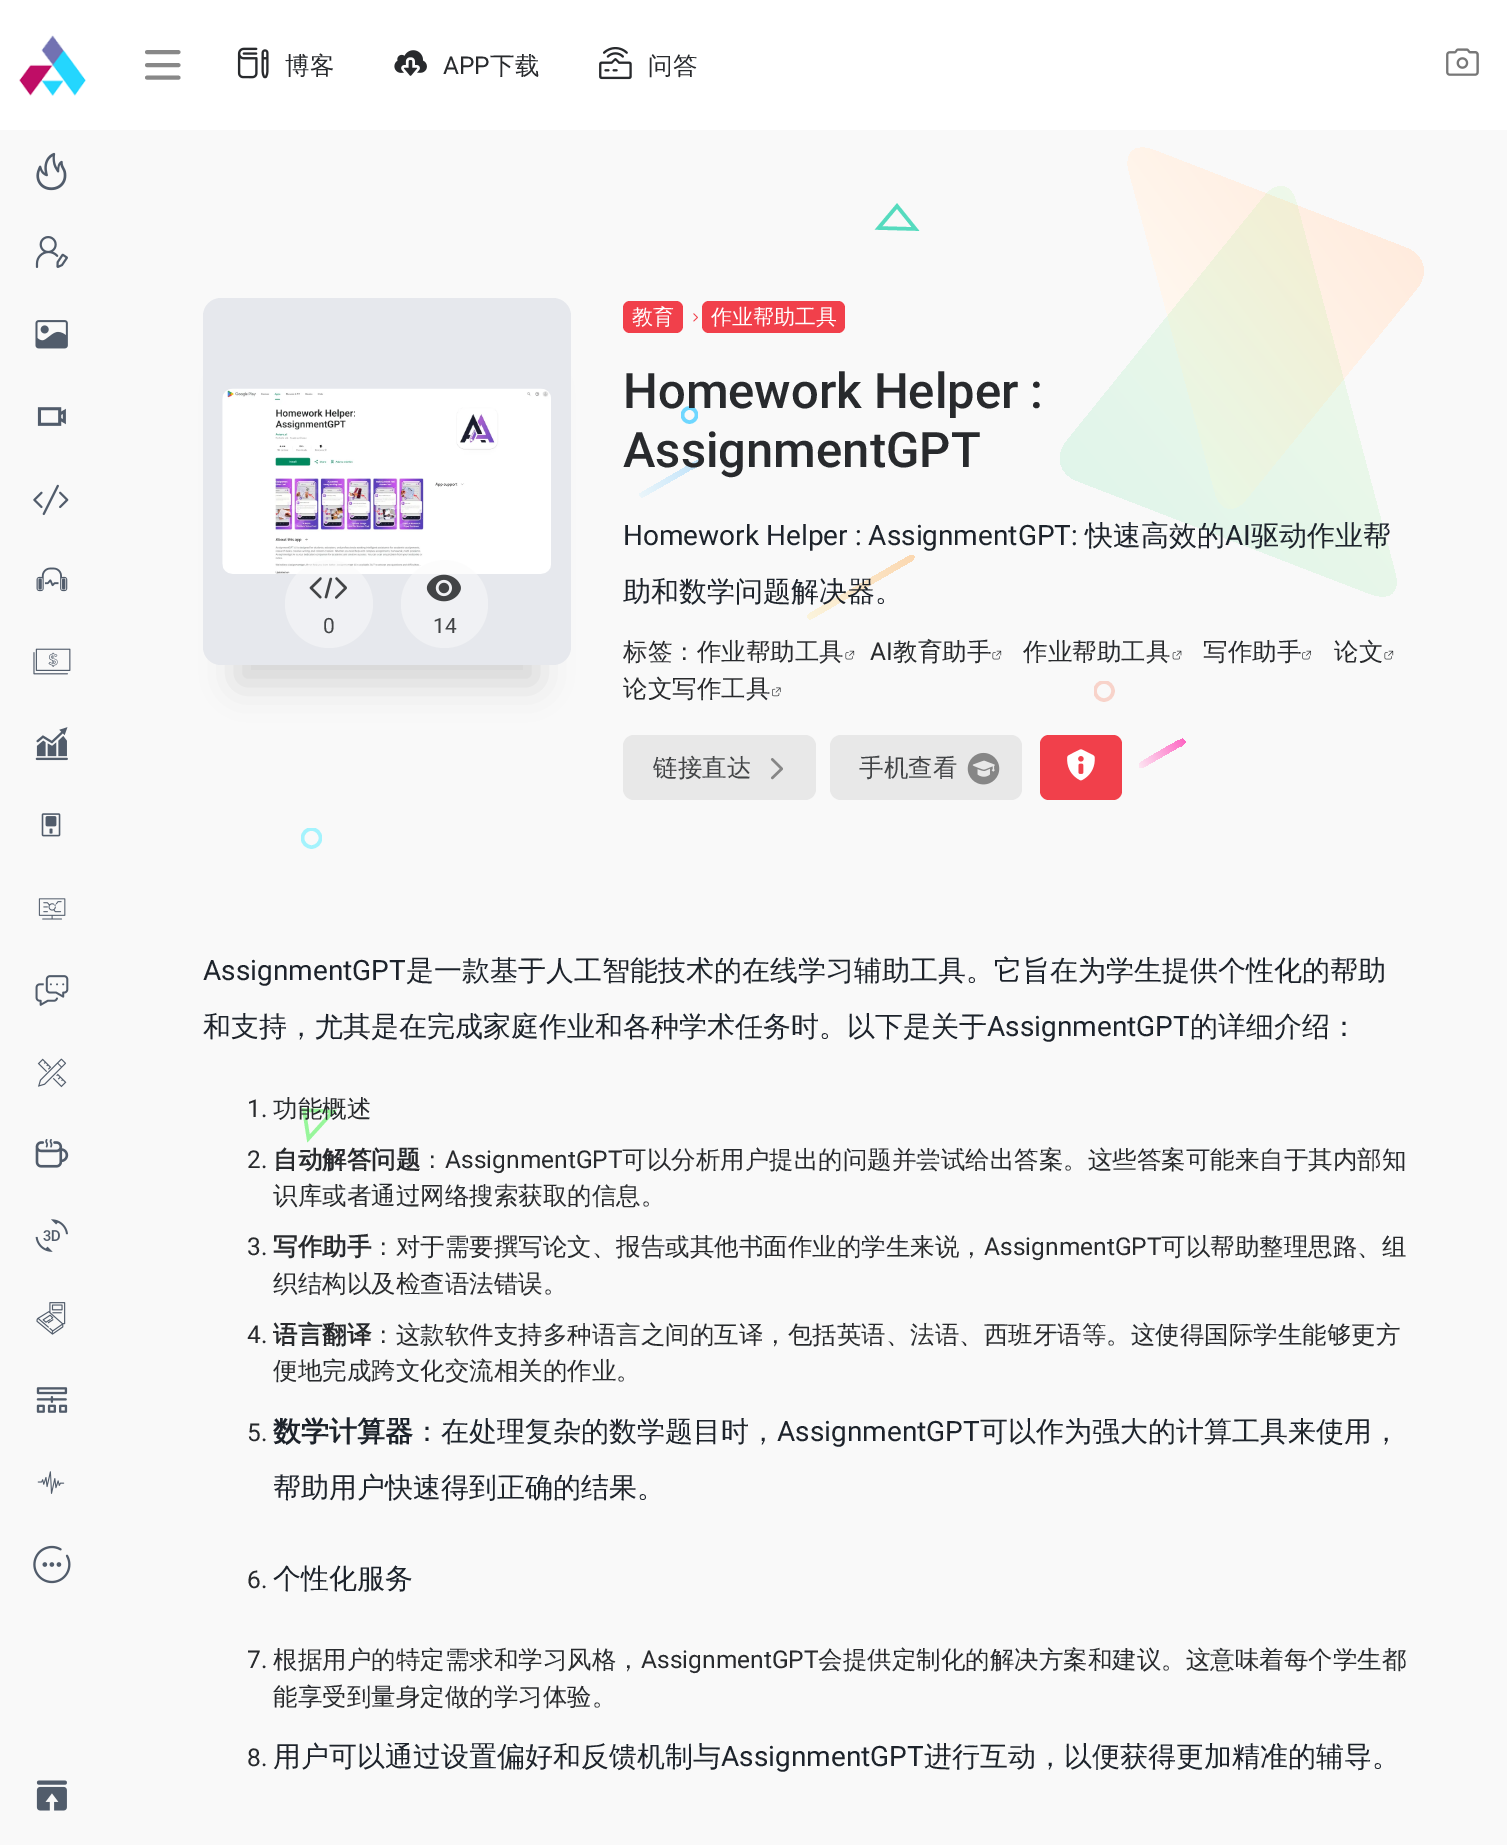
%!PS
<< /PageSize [1507 1845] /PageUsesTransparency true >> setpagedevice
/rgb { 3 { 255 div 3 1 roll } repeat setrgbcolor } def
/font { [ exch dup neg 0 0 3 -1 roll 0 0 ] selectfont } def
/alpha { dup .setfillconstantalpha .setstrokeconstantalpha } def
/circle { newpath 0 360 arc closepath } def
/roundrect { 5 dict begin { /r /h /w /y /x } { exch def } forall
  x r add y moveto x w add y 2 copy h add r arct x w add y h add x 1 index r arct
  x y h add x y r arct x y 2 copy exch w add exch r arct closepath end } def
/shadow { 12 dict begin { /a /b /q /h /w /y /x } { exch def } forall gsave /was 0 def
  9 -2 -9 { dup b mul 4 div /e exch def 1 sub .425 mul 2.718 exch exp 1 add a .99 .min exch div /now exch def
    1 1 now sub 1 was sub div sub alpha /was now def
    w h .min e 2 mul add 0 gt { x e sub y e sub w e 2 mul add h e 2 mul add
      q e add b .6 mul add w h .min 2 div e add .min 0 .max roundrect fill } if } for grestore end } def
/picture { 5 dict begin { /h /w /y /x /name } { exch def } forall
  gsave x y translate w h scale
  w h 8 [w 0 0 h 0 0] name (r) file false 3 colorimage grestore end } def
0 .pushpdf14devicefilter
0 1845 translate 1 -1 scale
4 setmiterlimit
249 249 249 rgb
0 0 1507 1845 rectfill
255 255 255 rgb
0 0 1507 130 rectfill
(img/1.rgb) 19 35 67 61 picture
(img/2.rgb) 36 152 31 39 picture
(img/3.rgb) 35 236 33 32 picture
(img/4.rgb) 35 320 33 29 picture
(img/5.rgb) 37 407 29 19 picture
(img/6.rgb) 33 484 36 32 picture
(img/7.rgb) 36 567 32 25 picture
(img/8.rgb) 33 648 38 27 picture
(img/9.rgb) 35 727 33 34 picture
(img/10.rgb) 41 813 20 24 picture
(img/11.rgb) 38 898 28 22 picture
(img/12.rgb) 35 975 34 31 picture
(img/13.rgb) 37 1058 30 30 picture
(img/14.rgb) 35 1139 34 29 picture
(img/15.rgb) 35 1219 33 33 picture
(img/16.rgb) 36 1302 30 33 picture
(img/17.rgb) 36 1387 32 26 picture
(img/18.rgb) 37 1471 28 23 picture
(img/19.rgb) 33 1545 38 39 picture
(img/20.rgb) 36 1780 31 31 picture
136 136 136 rgb
3.9 setlinewidth
1 setlinecap
1 setlinejoin
147 52 moveto 178.5 52 lineto 147 65 moveto 178.5 65 lineto 147 77.5 moveto 178.5 77.5 lineto stroke
(img/21.rgb) 237 47 32 32 picture
(img/22.rgb) 394 50 33 26 picture
(img/23.rgb) 599 47 33 33 picture
(img/24.rgb) 1446 48 33 28 picture
gsave 1215 492 moveto 1129 171 lineto 1124 153 1135 143 1153 150 curveto 1406 248 lineto 1424 255 1429 273 1417 288 curveto 1246 499 lineto 1234 514 1220 511 1215 492 curveto closepath eoclip newpath
<< /ShadingType 2 /ColorSpace /DeviceRGB /Coords [1348 148 1090 338] /Extend [true true] /Function << /FunctionType 2 /Domain [0 1] /C0 [1 0.922 0.867] /C1 [1 0.984 0.957] /N 1 >> >> shfill grestore
85 219 190 rgb
3.5 setlinewidth
0 setlinecap
0 setlinejoin
915.5 229 moveto 897 206 lineto 878.5 228 lineto closepath stroke
0.11 alpha
gsave 1296 202 moveto 1395 573 lineto 1400 592 1390 601 1371 594 curveto 1078 481 lineto 1059 474 1055 456 1067 441 curveto 1265 196 lineto 1277 181 1291 184 1296 202 curveto closepath eoclip newpath
<< /ShadingType 2 /ColorSpace /DeviceRGB /Coords [1295 186 1013 423] /Extend [true true] /Function << /FunctionType 2 /Domain [0 1] /C0 [0.584 0.957 0.412] /C1 [0.082 0.816 0.431] /N 1 >> >> shfill grestore
gsave
681 406 17 18 rectclip
1 alpha
111 215 255 rgb
689.5 415 7 circle stroke
grestore
1 alpha
gsave 641 493 moveto 698 460 lineto 700 461 lineto 704 464 696 467 690 470 curveto 643 497 lineto 640 498 638 494 641 493 curveto closepath eoclip newpath
<< /ShadingType 2 /ColorSpace /DeviceRGB /Coords [640 496 701 461] /Extend [true true] /Function << /FunctionType 2 /Domain [0 1] /C0 [0.922 0.965 0.98] /C1 [0.745 0.886 0.98] /N 1 >> >> shfill grestore
gsave 809 614 moveto 911 555 lineto 913 555 915 556 914 558 curveto 913 560 lineto 811 619 lineto 808 620 806 616 809 614 curveto closepath eoclip newpath
<< /ShadingType 2 /ColorSpace /DeviceRGB /Coords [808 618 914 557] /Extend [true true] /Function << /FunctionType 2 /Domain [0 1] /C0 [0.984 0.957 0.863] /C1 [0.984 0.847 0.694] /N 1 >> >> shfill grestore
gsave
1094 681 21 21 rectclip
248 211 202 rgb
1104 691 9 circle stroke
grestore
gsave 1140 763 moveto 1145 760 1181 738 1183 739 curveto 1185 741 lineto 1186 745 1178 747 1177 748 curveto 1142 768 lineto 1140 768 1139 766 1139 765 curveto closepath eoclip newpath
<< /ShadingType 2 /ColorSpace /DeviceRGB /Coords [1139 766 1185 740] /Extend [true true] /Function << /FunctionType 2 /Domain [0 1] /C0 [0.992 0.898 0.949] /C1 [0.992 0.4 0.765] /N 1 >> >> shfill grestore
gsave
301 828 21 21 rectclip
164 243 253 rgb
311.5 838 9 circle stroke
grestore
152 246 155 rgb
333 1111.5 moveto 304 1110 lineto 308.5 1138.5 lineto closepath stroke
0 0 0 rgb
238 385 298 298 0 17.5 0.15 shadow
230 232 237 rgb
203 298 368 367 18 roundrect fill
(img/25.rgb) 222 388 329 186 picture
0.5 alpha
250 250 250 rgb
329 604 44 circle fill
1 alpha
(img/26.rgb) 309 577 38 22 picture
0.5 alpha
401 560 87 88 43.5 roundrect fill
1 alpha
(img/27.rgb) 426 574 35 28 picture
241 64 75 rgb
623 301 60 32 7 roundrect fill
(img/28.rgb) 693 313 5 9 picture
702 301 143 32 7 roundrect fill
(img/29.rgb) 845 650 10 10 picture
(img/30.rgb) 992 650 10 10 picture
(img/31.rgb) 1172 650 10 10 picture
(img/32.rgb) 1302 650 9 10 picture
(img/33.rgb) 1384 650 10 10 picture
(img/34.rgb) 772 687 9 10 picture
232 232 232 rgb
623 735 193 65 11 roundrect fill
(img/35.rgb) 770 758 13 22 picture
830 735 192 65 11 roundrect fill
(img/36.rgb) 967 752 33 33 picture
241 64 75 rgb
1040 735 82 65 9 roundrect fill
(img/37.rgb) 1067 749 28 32 picture
/WenQuanYiZenHei-Medium 24.5 font
40 42 45 rgb
285 74 moveto (博客) show
/Roboto-Regular 24.5 font
443 74 moveto (APP) show
/WenQuanYiZenHei-Medium 24.5 font
490 74 moveto (下载) show
648 74 moveto (问答) show
/Roboto-Regular 21 font
66 68 70 rgb
323 633 moveto (0) show
433 633 moveto (14) show
/WenQuanYiZenHei-Medium 21 font
255 255 255 rgb
632 324 moveto (教育) show
711 324 moveto (作业帮助工具) show
/Roboto-Medium 49 font
40 42 45 rgb
623 408 moveto (Homework Helper :) show
623 467 moveto (AssignmentGPT) show
/Roboto-Regular 28 font
29 35 43 rgb
623 545 moveto (Homework Helper : AssignmentGPT:) show
/WenQuanYiZenHei-Medium 28 font
1085 545 moveto (快速高效的) show
/Roboto-Regular 28 font
1225 545 moveto (AI) show
/WenQuanYiZenHei-Medium 28 font
1251 545 moveto (驱动作业帮) show
623 601 moveto (助和数学问题解决器。) show
/WenQuanYiZenHei-Medium 24.5 font
40 42 45 rgb
623 660 moveto (标签：作业帮助工具) show
/Roboto-Regular 24.5 font
870 660 moveto (AI) show
/WenQuanYiZenHei-Medium 24.5 font
[
  [(教育助手) 893 660]
  [(作业帮助工具) 1023 660]
  [(写作助手) 1203 660]
  [(论文) 1334 660]
  [(论文写作工具) 623 697]
] { aload pop moveto show } forall
66 68 70 rgb
653 776 moveto (链接直达) show
859 776 moveto (手机查看) show
/Roboto-Regular 28 font
29 35 43 rgb
203 980 moveto (AssignmentGPT) show
/WenQuanYiZenHei-Medium 28 font
406 980 moveto (是一款基于人工智能技术的在线学习辅助工具。它旨在为学生提供个性化的帮助) show
203 1036 moveto (和支持，尤其是在完成家庭作业和各种学术任务时。以下是关于) show
/Roboto-Regular 28 font
987 1036 moveto (AssignmentGPT) show
/WenQuanYiZenHei-Medium 28 font
1190 1036 moveto (的详细介绍：) show
/Roboto-Regular 24.5 font
40 42 45 rgb
247 1117 moveto (1.) show
/WenQuanYiZenHei-Medium 24.5 font
273 1117 moveto (功能概述) show
/Roboto-Regular 24.5 font
247 1168 moveto (2.) show
/WenQuanYiZenHei-Bold 24.5 font
273 1168 moveto (自动解答问题) show
/WenQuanYiZenHei-Medium 24.5 font
420 1168 moveto (：) show
/Roboto-Regular 24.5 font
445 1168 moveto (AssignmentGPT) show
/WenQuanYiZenHei-Medium 24.5 font
622 1168 moveto (可以分析用户提出的问题并尝试给出答案。这些答案可能来自于其内部知) show
273 1204 moveto (识库或者通过网络搜索获取的信息。) show
/Roboto-Regular 24.5 font
247 1255 moveto (3.) show
/WenQuanYiZenHei-Bold 24.5 font
273 1255 moveto (写作助手) show
/WenQuanYiZenHei-Medium 24.5 font
371 1255 moveto (：对于需要撰写论文、报告或其他书面作业的学生来说，) show
/Roboto-Regular 24.5 font
984 1255 moveto (AssignmentGPT) show
/WenQuanYiZenHei-Medium 24.5 font
1161 1255 moveto (可以帮助整理思路、组) show
273 1292 moveto (织结构以及检查语法错误。) show
/Roboto-Regular 24.5 font
247 1343 moveto (4.) show
/WenQuanYiZenHei-Bold 24.5 font
273 1343 moveto (语言翻译) show
/WenQuanYiZenHei-Medium 24.5 font
371 1343 moveto (：这款软件支持多种语言之间的互译，包括英语、法语、西班牙语等。这使得国际学生能够更方) show
273 1379 moveto (便地完成跨文化交流相关的作业。) show
/Roboto-Regular 24.5 font
247 1441 moveto (5.) show
/WenQuanYiZenHei-Bold 28 font
29 35 43 rgb
273 1441 moveto (数学计算器) show
/WenQuanYiZenHei-Medium 28 font
413 1441 moveto (：在处理复杂的数学题目时，) show
/Roboto-Regular 28 font
777 1441 moveto (AssignmentGPT) show
/WenQuanYiZenHei-Medium 28 font
980 1441 moveto (可以作为强大的计算工具来使用，) show
273 1497 moveto (帮助用户快速得到正确的结果。) show
/Roboto-Regular 24.5 font
40 42 45 rgb
247 1588 moveto (6.) show
/WenQuanYiZenHei-Medium 28 font
29 35 43 rgb
273 1588 moveto (个性化服务) show
/Roboto-Regular 24.5 font
40 42 45 rgb
247 1668 moveto (7.) show
/WenQuanYiZenHei-Medium 24.5 font
273 1668 moveto (根据用户的特定需求和学习风格，) show
/Roboto-Regular 24.5 font
641 1668 moveto (AssignmentGPT) show
/WenQuanYiZenHei-Medium 24.5 font
818 1668 moveto (会提供定制化的解决方案和建议。这意味着每个学生都) show
273 1705 moveto (能享受到量身定做的学习体验。) show
/Roboto-Regular 24.5 font
247 1766 moveto (8.) show
/WenQuanYiZenHei-Medium 28 font
29 35 43 rgb
273 1766 moveto (用户可以通过设置偏好和反馈机制与) show
/Roboto-Regular 28 font
721 1766 moveto (AssignmentGPT) show
/WenQuanYiZenHei-Medium 28 font
924 1766 moveto (进行互动，以便获得更加精准的辅导。) show
.poppdf14devicefilter showpage
